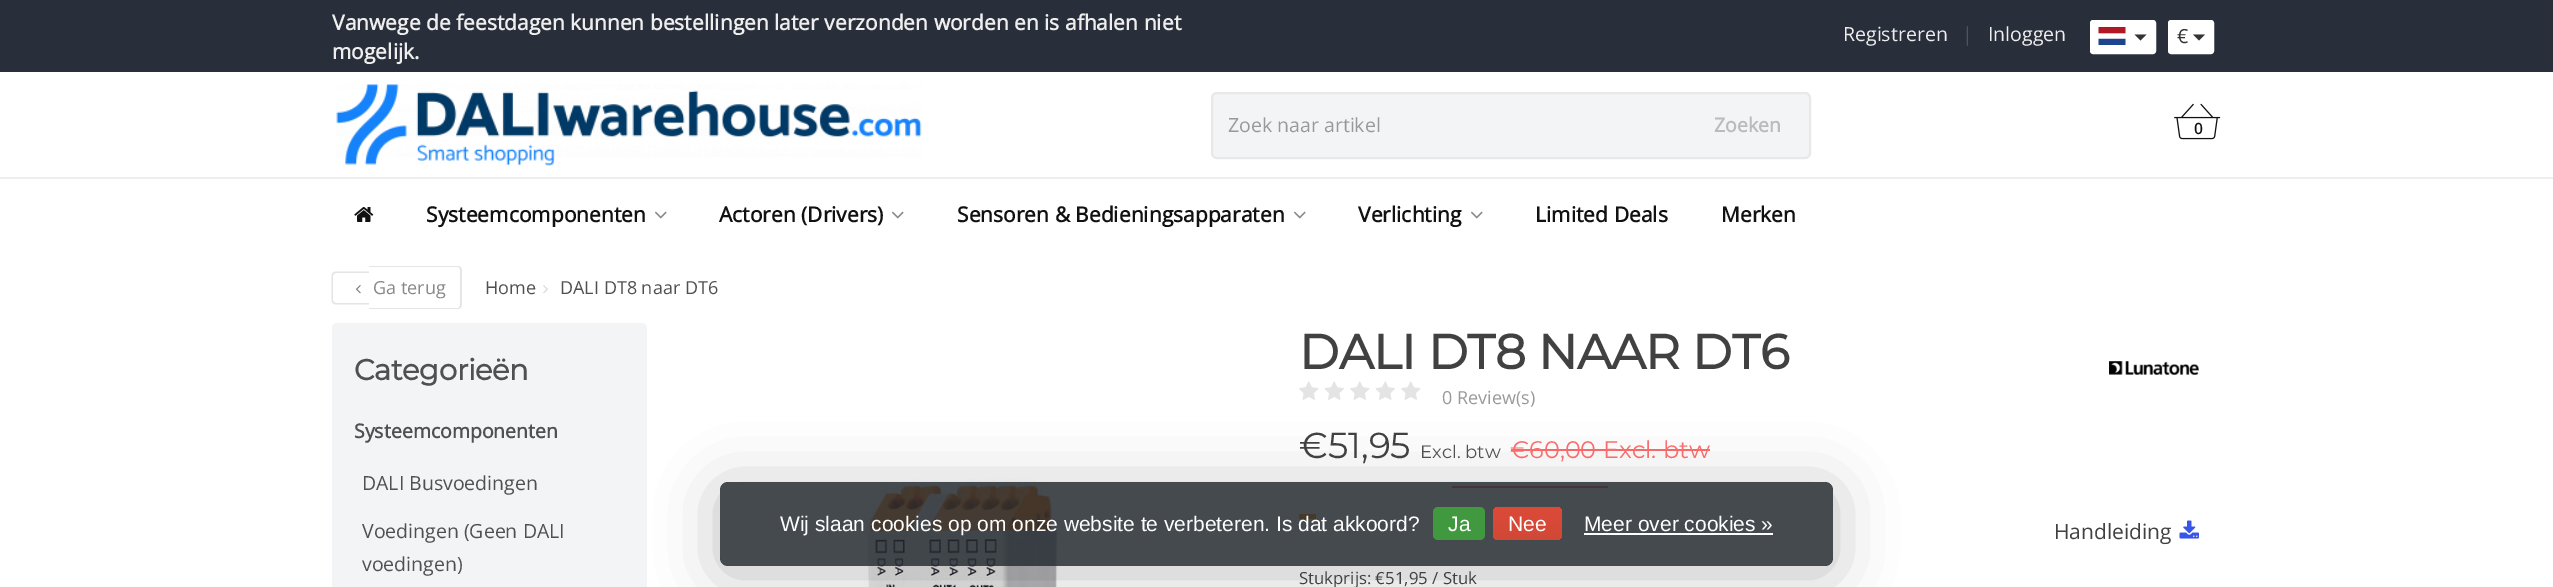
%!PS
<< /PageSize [2553 587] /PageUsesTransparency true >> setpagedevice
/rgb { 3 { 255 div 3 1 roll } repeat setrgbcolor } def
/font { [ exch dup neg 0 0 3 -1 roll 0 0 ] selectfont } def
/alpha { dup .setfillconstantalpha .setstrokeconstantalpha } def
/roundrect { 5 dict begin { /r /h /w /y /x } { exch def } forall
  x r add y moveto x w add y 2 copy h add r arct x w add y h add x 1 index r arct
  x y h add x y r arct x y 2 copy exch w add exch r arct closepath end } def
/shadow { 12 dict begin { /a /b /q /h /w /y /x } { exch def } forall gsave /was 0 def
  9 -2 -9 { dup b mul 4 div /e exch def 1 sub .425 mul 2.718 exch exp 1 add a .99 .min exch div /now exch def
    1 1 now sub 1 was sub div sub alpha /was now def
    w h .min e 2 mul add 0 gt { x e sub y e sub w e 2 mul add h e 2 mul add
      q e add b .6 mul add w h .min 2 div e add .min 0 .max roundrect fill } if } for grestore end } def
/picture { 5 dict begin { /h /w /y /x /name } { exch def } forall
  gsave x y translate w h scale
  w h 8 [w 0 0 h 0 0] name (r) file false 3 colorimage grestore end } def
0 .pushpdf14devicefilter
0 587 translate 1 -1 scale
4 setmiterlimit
255 255 255 rgb
0 0 2553 587 rectfill
40 46 58 rgb
0 0 2553 72 rectfill
255 255 255 rgb
2091 21 64 32 2 roundrect gsave fill grestore
2 setlinewidth
stroke
(img/1.rgb) 2098 27 28 18 picture
51 51 51 rgb
2134.5 34.5 moveto 2146.5 34.5 lineto 2140.5 40.5 lineto closepath fill
255 255 255 rgb
2169 21 44 32 2 roundrect gsave fill grestore
stroke
51 51 51 rgb
2193 34.5 moveto 2205 34.5 lineto 2199 40.5 lineto closepath fill
(img/2.rgb) 336 84 586 82 picture
243 244 245 rgb
1211 92 600 67 6 roundrect fill
0.5 alpha
221 221 221 rgb
1212 93 598 65 5 roundrect stroke
1 alpha
(img/3.rgb) 2174 103 47 37 picture
255 255 255 rgb
2187 122 20 12 rectfill
(img/4.rgb) 354 207 20 15 picture
(img/5.rgb) 655 211 12 8 picture
(img/5.rgb) 892 211 12 8 picture
(img/5.rgb) 1294 211 12 8 picture
(img/5.rgb) 1471 211 12 8 picture
238 238 238 rgb
0 177 2553 2 rectfill
229 229 229 rgb
336 271.5 moveto 369 271.5 lineto 369 304.5 lineto 336 304.5 lineto 333.5 304.5 331.5 302.5 331.5 300 curveto 331.5 276 lineto 331.5 273.5 333.5 271.5 336 271.5 curveto closepath 336 273 moveto 369 273 lineto 369 303 lineto 336 303 lineto 334.5 303 333 301.5 333 300 curveto 333 276 lineto 333 274.5 334.5 273 336 273 curveto closepath eofill
369 266 moveto 458 266 lineto 460 266 462 268 462 270 curveto 462 304 lineto 462 307 460 309 458 309 curveto 369 309 lineto closepath 369 267 moveto 458 267 lineto 459 267 460 268 460 270 curveto 460 304 lineto 460 306 459 308 458 308 curveto 369 308 lineto closepath eofill
(img/6.rgb) 355 285 6 9 picture
(img/7.rgb) 543 285 5 9 picture
243 244 245 rgb
332 323 315 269 5 roundrect fill
(img/8.rgb) 864 478 194 109 picture
(img/9.rgb) 2109 361 90 14 picture
(img/10.rgb) 1299 381 20 19 picture
(img/11.rgb) 1324 381 20 19 picture
(img/10.rgb) 1350 381 20 19 picture
(img/11.rgb) 1375 381 20 19 picture
(img/10.rgb) 1401 381 20 19 picture
[
  [1511 449 199 2 250 107 107]
  [1452 486 156 2 250 107 107]
  [1299 514 17 5 255 152 0]
] { aload pop rgb rectfill } forall
(img/12.rgb) 2179 520 20 19 picture
gsave
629 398 moveto 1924 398 lineto 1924 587 lineto 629 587 lineto closepath 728 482 moveto 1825 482 lineto 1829.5 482 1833 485.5 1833 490 curveto 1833 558 lineto 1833 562.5 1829.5 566 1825 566 curveto 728 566 lineto 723.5 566 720 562.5 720 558 curveto 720 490 lineto 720 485.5 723.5 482 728 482 curveto closepath eoclip newpath
0 0 0 rgb
720 489 1113 84 8 30 0.25 shadow
grestore
0.85 alpha
36 42 48 rgb
720 482 1113 84 8 roundrect fill
1 alpha
64 152 63 rgb
1433 507 52 33 5 roundrect fill
gsave 1493 507 69 33 5 roundrect clip newpath
<< /ShadingType 2 /ColorSpace /DeviceRGB /Coords [1527 507 1527 540] /Extend [true true] /Function << /FunctionType 2 /Domain [0 1] /C0 [0.863 0.29 0.22] /C1 [0.82 0.282 0.212] /N 1 >> >> shfill grestore
255 255 255 rgb
1584 533 189 2 rectfill
/OpenSans-Bold 21 font
238 238 238 rgb
332 30 moveto (Vanwege de feestdagen kunnen bestellingen later verzonden worden en is afhalen niet) show
332 59 moveto (mogelijk.) show
/OpenSans-Regular 19.5 font
1843 41 moveto (Registreren) show
80 84 94 rgb
1962 41 moveto (|) show
238 238 238 rgb
1988 41 moveto (Inloggen) show
51 51 51 rgb
2177 43 moveto (€) show
153 153 153 rgb
1228 132 moveto (Zoek naar artikel) show
/OpenSans-Bold 19.5 font
187 187 187 rgb
1714 132 moveto (Zoeken) show
/OpenSans-Bold 15 font
17 17 17 rgb
2194 134 moveto (0) show
/OpenSans-Bold 21 font
[
  [(Systeemcomponenten) 426 222]
  [(Actoren \(Drivers\)) 719 222]
  [(Sensoren & Bedieningsapparaten) 957 222]
  [(Verlichting) 1358 222]
  [(Limited Deals) 1535 222]
  [(Merken) 1721 222]
] { aload pop moveto show } forall
/OpenSans-Regular 18 font
136 136 136 rgb
373 294 moveto (Ga terug) show
80 80 80 rgb
485 294 moveto (Home) show
560 294 moveto (DALI DT8 naar DT6) show
/Montserrat-Bold 29 font
354 380 moveto -0.4 0 (Categorieën) ashow
/OpenSans-Bold 19.5 font
354 438 moveto (Systeemcomponenten) show
/OpenSans-Regular 19.5 font
[
  [(DALI Busvoedingen) 362 490]
  [(Voedingen \(Geen DALI) 362 538]
  [(voedingen\)) 362 571]
] { aload pop moveto show } forall
/Montserrat-Bold 48.5 font
65 65 65 rgb
1299 369 moveto -0.4 0 (DALI DT8 NAAR DT6) ashow
/OpenSans-Regular 18 font
153 153 153 rgb
1442 404 moveto (0 Review\(s\)) show
/Montserrat-Thin 36 font
65 65 65 rgb
1299 458 moveto (€51,95) show
/Montserrat-Thin 18 font
80 80 80 rgb
1420 458 moveto (Excl. btw) show
/Montserrat-Thin 24 font
250 107 107 rgb
1510 458 moveto (€60,00 Excl. btw) show
/OpenSans-Regular 21 font
65 65 65 rgb
2054 539 moveto (Handleiding) show
/OpenSans-Regular 16.75 font
1299 584 moveto (Stukprijs: €51,95 / Stuk) show
/LiberationSans-Regular 21 font
255 255 255 rgb
[
  [(Wij slaan cookies op om onze website te verbeteren. Is dat akkoord?) 780 531]
  [(Ja) 1448 531]
  [(Nee) 1508 531]
  [(Meer over cookies ») 1584 531]
] { aload pop moveto show } forall
.poppdf14devicefilter showpage
